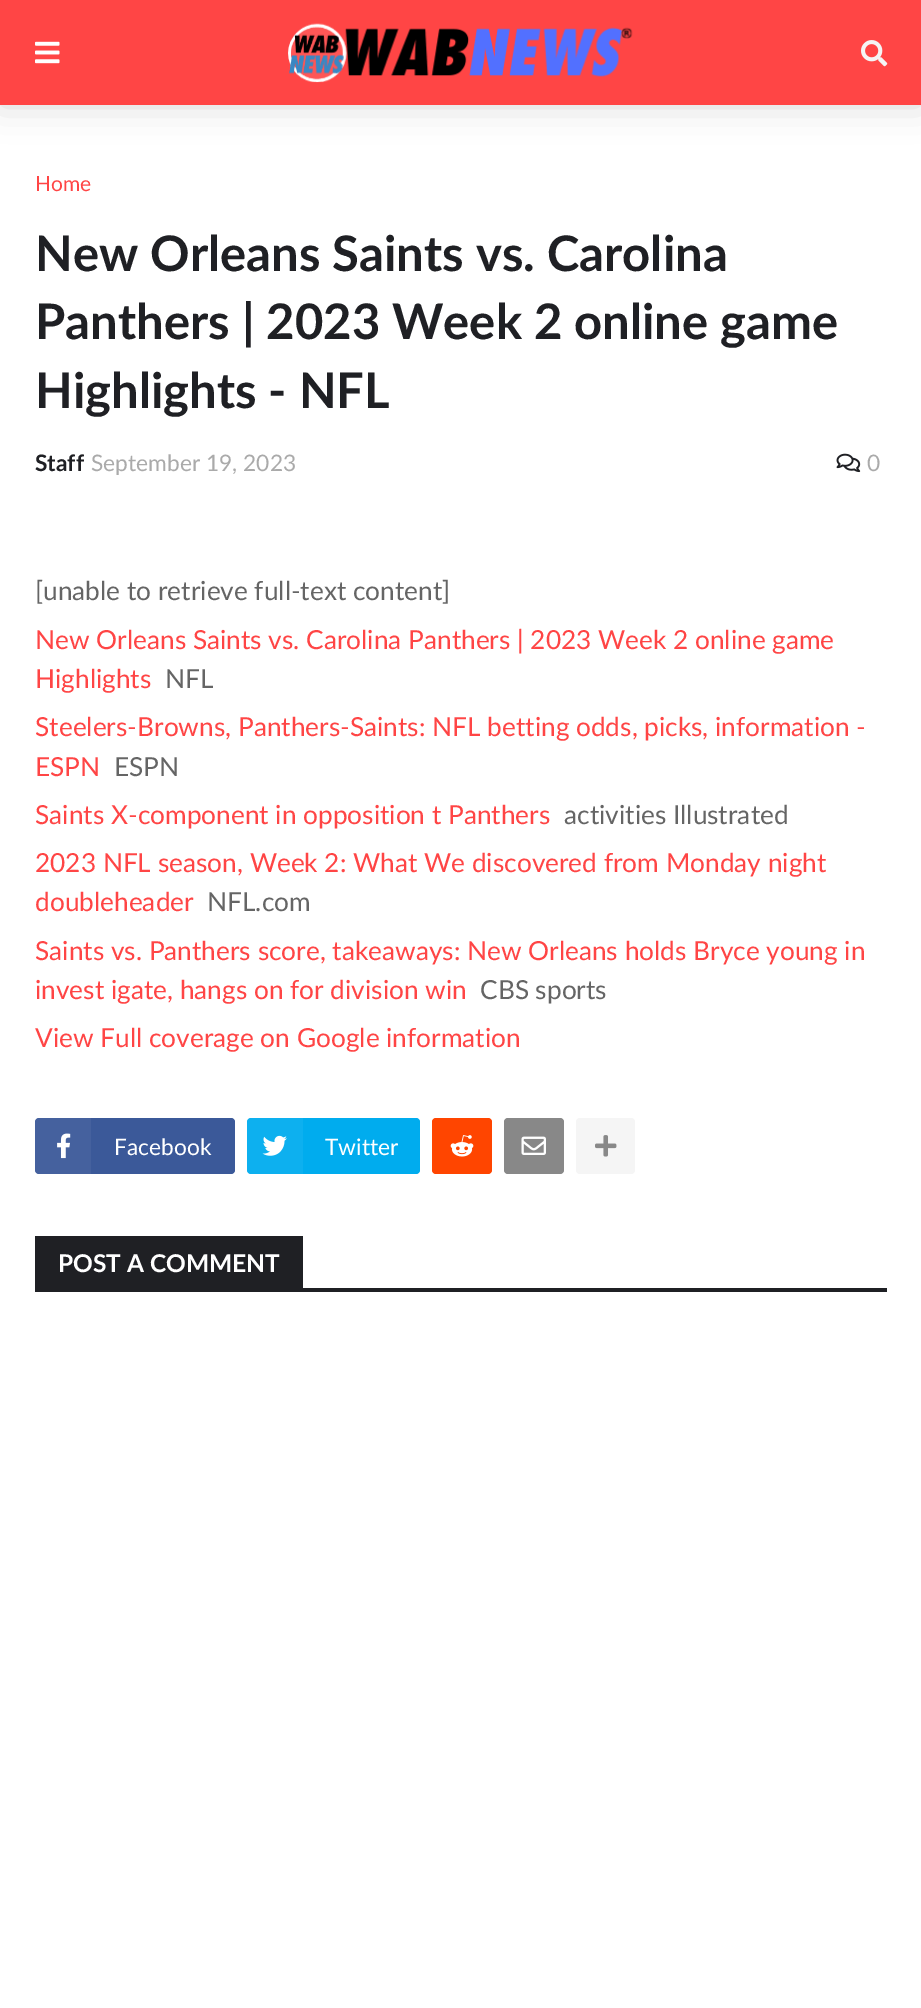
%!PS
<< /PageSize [921 2008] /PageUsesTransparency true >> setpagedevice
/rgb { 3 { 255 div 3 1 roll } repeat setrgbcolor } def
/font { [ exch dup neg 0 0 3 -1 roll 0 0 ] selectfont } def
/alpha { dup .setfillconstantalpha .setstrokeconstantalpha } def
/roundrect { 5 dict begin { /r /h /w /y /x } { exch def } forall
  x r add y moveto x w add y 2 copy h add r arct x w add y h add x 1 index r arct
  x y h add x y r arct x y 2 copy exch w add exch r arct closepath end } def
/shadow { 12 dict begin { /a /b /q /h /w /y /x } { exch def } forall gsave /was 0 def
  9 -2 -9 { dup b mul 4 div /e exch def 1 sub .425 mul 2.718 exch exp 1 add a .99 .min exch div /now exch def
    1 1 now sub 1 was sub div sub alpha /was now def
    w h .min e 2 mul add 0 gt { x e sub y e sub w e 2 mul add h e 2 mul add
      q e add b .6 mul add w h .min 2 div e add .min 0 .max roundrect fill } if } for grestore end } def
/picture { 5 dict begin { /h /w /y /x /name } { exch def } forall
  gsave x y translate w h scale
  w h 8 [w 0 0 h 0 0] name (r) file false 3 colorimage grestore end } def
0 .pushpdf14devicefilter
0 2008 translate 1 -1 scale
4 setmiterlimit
255 255 255 rgb
0 0 921 2008 rectfill
0 0 0 rgb
0 0 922 105 0 17.5 0.15 shadow
255 69 69 rgb
0 0 921 105 rectfill
(img/1.rgb) 35 41 25 23 picture
(img/2.rgb) 288 23 345 60 picture
(img/3.rgb) 861 40 27 27 picture
(img/4.rgb) 836 453 25 20 picture
59 89 153 rgb
35 1118 200 56 4 roundrect fill
0.05 alpha
255 255 255 rgb
35 1118 56 56 rectfill
1 alpha
(img/5.rgb) 57 1133 14 26 picture
0 172 238 rgb
247 1118 173 56 4 roundrect fill
0.05 alpha
255 255 255 rgb
247 1118 56 56 rectfill
1 alpha
(img/6.rgb) 262 1135 25 21 picture
255 69 0 rgb
432 1118 60 56 4 roundrect fill
(img/7.rgb) 450 1135 24 22 picture
136 136 136 rgb
504 1118 60 56 4 roundrect fill
(img/8.rgb) 521 1136 25 19 picture
245 245 245 rgb
576 1118 59 56 4 roundrect fill
(img/9.rgb) 595 1135 22 22 picture
31 32 36 rgb
35 1288 852 4 rectfill
35 1236 268 52 rectfill
/Lato-Regular 21 font
255 69 69 rgb
35 191 moveto (Home) show
/Lato-Bold 49 font
31 32 36 rgb
[
  [(New Orleans Saints vs. Carolina) 35 271]
  [(Panthers | 2023 Week 2 online game) 35 339]
  [(Highlights - NFL) 35 408]
] { aload pop moveto show } forall
/Lato-Bold 22.75 font
35 471 moveto (Staff) show
/Lato-Regular 22.75 font
170 170 170 rgb
91 471 moveto (September 19, 2023) show
867 471 moveto (0) show
/Lato-Regular 26.25 font
101 101 101 rgb
35 600 moveto ([unable to retrieve full-text content]) show
255 69 69 rgb
35 649 moveto (New Orleans Saints vs. Carolina Panthers | 2023 Week 2 online game) show
35 688 moveto (Highlights) show
101 101 101 rgb
165 688 moveto (NFL) show
255 69 69 rgb
35 736 moveto (Steelers-Browns, Panthers-Saints: NFL betting odds, picks, information -) show
35 776 moveto (ESPN) show
101 101 101 rgb
114 776 moveto (ESPN) show
255 69 69 rgb
35 824 moveto (Saints X-component in opposition t Panthers) show
101 101 101 rgb
564 824 moveto (activities Illustrated) show
255 69 69 rgb
35 872 moveto (2023 NFL season, Week 2: What We discovered from Monday night) show
35 911 moveto (doubleheader) show
101 101 101 rgb
207 911 moveto (NFL.com) show
255 69 69 rgb
35 960 moveto (Saints vs. Panthers score, takeaways: New Orleans holds Bryce young in) show
35 999 moveto (invest igate, hangs on for division win) show
101 101 101 rgb
480 999 moveto (CBS sports) show
255 69 69 rgb
35 1047 moveto (View Full coverage on Google information) show
/Lato-Regular 22.75 font
255 255 255 rgb
114 1155 moveto (Facebook) show
325 1155 moveto (Twitter) show
/Lato-Bold 24.5 font
58 1272 moveto (POST A COMMENT) show
.poppdf14devicefilter showpage
